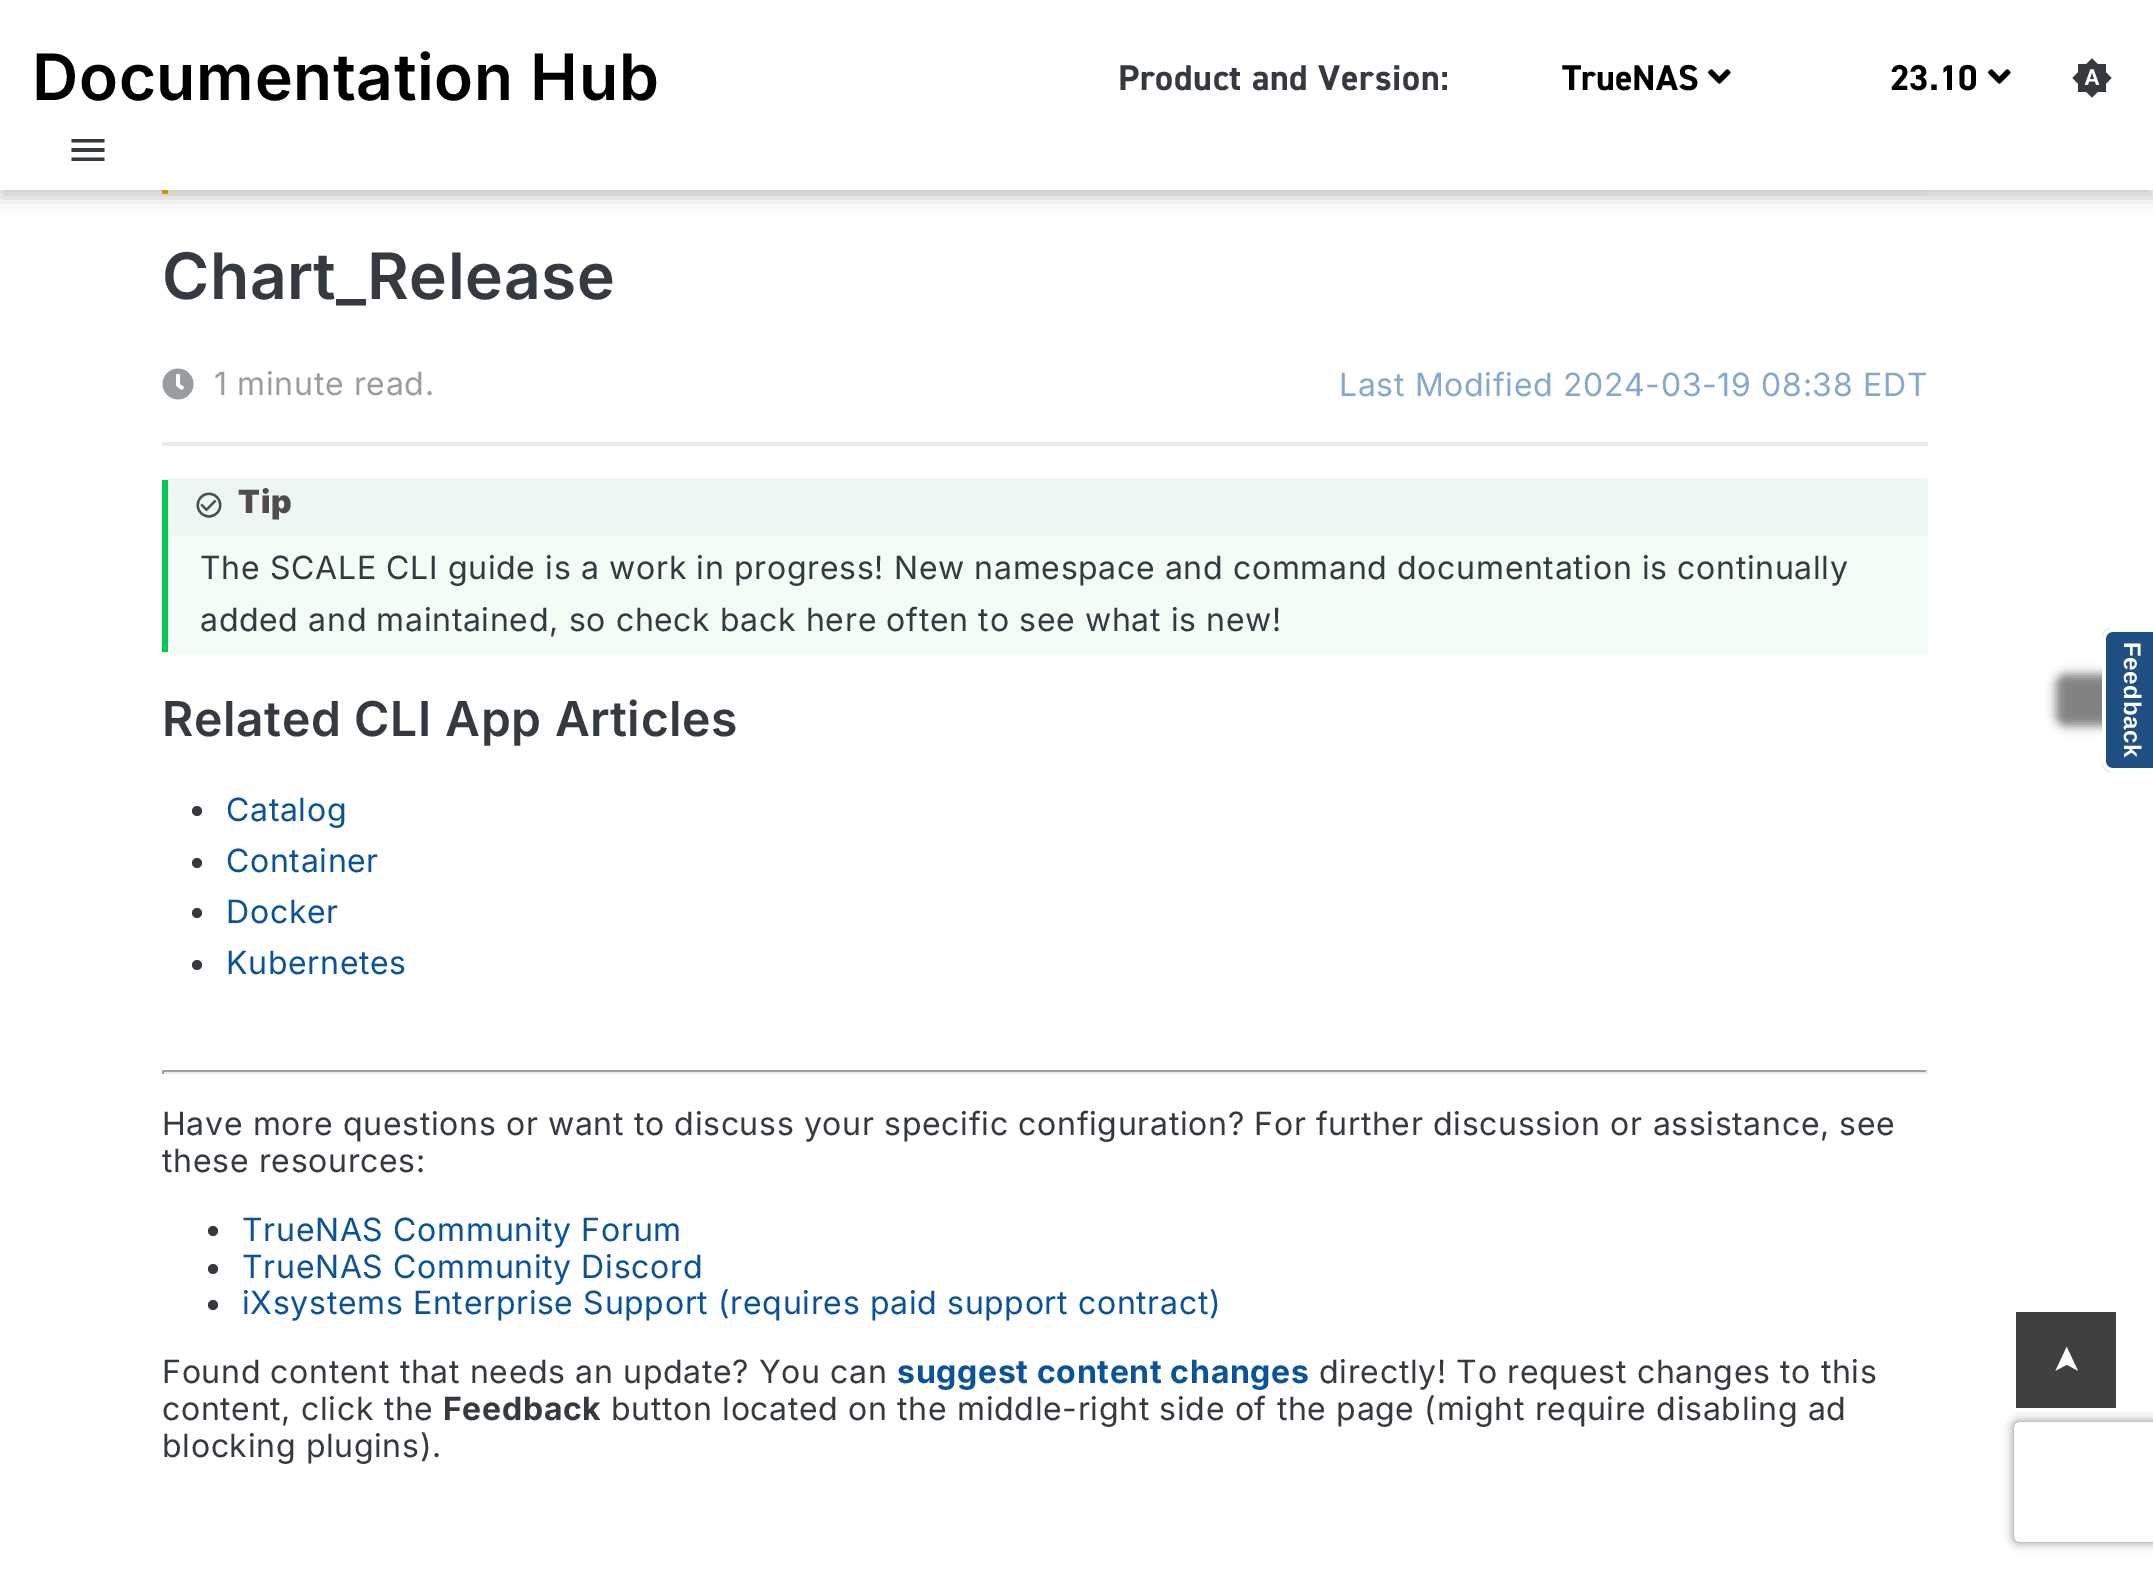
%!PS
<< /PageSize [2153 1569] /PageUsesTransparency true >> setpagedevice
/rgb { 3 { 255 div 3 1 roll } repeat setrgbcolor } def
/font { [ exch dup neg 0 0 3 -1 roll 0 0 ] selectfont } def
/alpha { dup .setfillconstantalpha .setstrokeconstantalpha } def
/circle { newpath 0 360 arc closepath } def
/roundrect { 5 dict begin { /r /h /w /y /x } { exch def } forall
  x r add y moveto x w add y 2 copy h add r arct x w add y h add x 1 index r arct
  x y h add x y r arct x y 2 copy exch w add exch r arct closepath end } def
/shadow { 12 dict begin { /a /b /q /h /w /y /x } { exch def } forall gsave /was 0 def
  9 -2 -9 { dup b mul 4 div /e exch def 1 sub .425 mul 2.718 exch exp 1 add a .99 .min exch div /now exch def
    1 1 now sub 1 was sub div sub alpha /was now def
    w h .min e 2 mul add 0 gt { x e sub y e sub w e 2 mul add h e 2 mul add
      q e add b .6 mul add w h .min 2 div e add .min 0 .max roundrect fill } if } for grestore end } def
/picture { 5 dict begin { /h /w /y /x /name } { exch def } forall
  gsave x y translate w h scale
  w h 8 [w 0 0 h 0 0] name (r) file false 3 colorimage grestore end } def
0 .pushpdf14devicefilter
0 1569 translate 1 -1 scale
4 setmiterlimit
255 255 255 rgb
0 0 2153 1569 rectfill
253 250 244 rgb
162 -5 1766 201 5 roundrect fill
255 171 0 rgb
162 190 6 4 rectfill
0 0 0 rgb
0 8 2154 190 0 8 0.2 shadow
255 255 255 rgb
0 0 2153 190 rectfill
(img/1.rgb) 1708 69 23 15 picture
(img/1.rgb) 1988 69 23 15 picture
(img/2.rgb) 2072 58 40 40 picture
52 58 64 rgb
71.5 139 moveto 104.5 139 lineto 104.5 142.5 lineto 71.5 142.5 lineto closepath 71.5 152 moveto 71.5 148 lineto 104.5 148 lineto 104.5 152 lineto closepath 71.5 161 moveto 71.5 157.5 lineto 104.5 157.5 lineto 104.5 161 lineto closepath fill
(img/3.rgb) 162 368 32 32 picture
233 236 239 rgb
162 442 1766 4 rectfill
242 253 246 rgb
162 478 1766 176 5 roundrect fill
0 200 83 rgb
162 480 6 172 rectfill
0.05 alpha
134 142 150 rgb
168 478 1760 58 rectfill
1 alpha
(img/4.rgb) 196 492 26 26 picture
52 58 64 rgb
197 811 5 circle fill
197 863 5 circle fill
197 913 5 circle fill
197 965 5 circle fill
[
  [162 1070 1766 2 159 159 159]
  [1926 1070 2 4 238 238 238]
  [162 1072 1766 2 238 238 238]
  [162 1070 2 4 159 159 159]
] { aload pop rgb rectfill } forall
52 58 64 rgb
213 1231 5 circle fill
213 1269 5 circle fill
213 1305 5 circle fill
gsave
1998 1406 moveto 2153 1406 lineto 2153 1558 lineto 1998 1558 lineto closepath 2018 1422 moveto 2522 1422 lineto 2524 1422 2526 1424 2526 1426 curveto 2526 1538 lineto 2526 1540 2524 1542 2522 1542 curveto 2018 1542 lineto 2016 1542 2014 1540 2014 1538 curveto 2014 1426 lineto 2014 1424 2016 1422 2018 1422 curveto closepath eoclip newpath
128 128 128 rgb
2014 1422 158 120 4 5 1 shadow
grestore
64 64 64 rgb
2016 1312 100 96 rectfill
0 0 0 rgb
2056 674 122 52 10 5 0.5 shadow
32 80 129 rgb
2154 628 moveto 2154 772 lineto 2112 772 lineto 2107 772 2102 768 2102 762 curveto 2102 638 lineto 2102 632 2107 628 2112 628 curveto closepath fill
255 255 255 rgb
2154 628 moveto 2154 772 lineto 2112 772 lineto 2107 772 2102 768 2102 762 curveto 2102 638 lineto 2102 632 2107 628 2112 628 curveto closepath 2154 632 moveto 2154 768 lineto 2112 768 lineto 2109 768 2106 765 2106 762 curveto 2106 638 lineto 2106 635 2109 632 2112 632 curveto closepath eofill
/Inter-SemiBold 64 font
0 0 0 rgb
32 100 moveto 0.66 0 (Documentation Hub) ashow
/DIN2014-Bold 36 font
52 58 64 rgb
1118 90 moveto 0.66 0 (Product and Version:) ashow
0 0 0 rgb
1562 90 moveto (TrueNAS) show
1890 90 moveto (23.10) show
/Inter-SemiBold 64 font
52 58 64 rgb
162 299 moveto 0.66 0 (Chart_Release) ashow
/Inter-Regular 32 font
154 157 160 rgb
214 395 moveto 0.66 0 (1 minute read.) ashow
133 169 205 rgb
1339 396 moveto 0.66 0 (Last Modified 2024-03-19 08:38 EDT) ashow
/Inter-Black 32 font
77 77 77 rgb
238 513 moveto 0.66 0 (Tip) ashow
/Inter-Regular 32 font
52 58 64 rgb
200 579 moveto 0.66 0 (The SCALE CLI guide is a work in progress! New namespace and command documentation is continually) ashow
200 631 moveto 0.66 0 (added and maintained, so check back here often to see what is new!) ashow
/Inter-SemiBold 48 font
162 736 moveto 0.66 0 (Related CLI App Articles) ashow
/Inter-Regular 32 font
10 83 154 rgb
226 821 moveto 0.66 0 (Catalog) ashow
226 872 moveto 0.66 0 (Container) ashow
226 923 moveto 0.66 0 (Docker) ashow
226 974 moveto 0.66 0 (Kubernetes) ashow
52 58 64 rgb
162 1135 moveto 0.66 0 (Have more questions or want to discuss your specific configuration? For further discussion or assistance, see) ashow
162 1172 moveto 0.66 0 (these resources:) ashow
10 83 154 rgb
242 1241 moveto 0.66 0 (TrueNAS Community Forum) ashow
242 1278 moveto 0.66 0 (TrueNAS Community Discord) ashow
242 1314 moveto 0.66 0 (iXsystems Enterprise Support \(requires paid support contract\)) ashow
52 58 64 rgb
162 1383 moveto 0.66 0 (Found content that needs an update? You can) ashow
/Inter-Bold 32 font
10 83 154 rgb
897 1383 moveto 0.66 0 (suggest content changes) ashow
/Inter-Regular 32 font
52 58 64 rgb
1319 1383 moveto 0.66 0 (directly! To request changes to this) ashow
162 1420 moveto 0.66 0 (content, click the) ashow
/Inter-Bold 32 font
443 1420 moveto 0.66 0 (Feedback) ashow
/Inter-Regular 32 font
611 1420 moveto 0.66 0 (button located on the middle-right side of the page \(might require disabling ad) ashow
162 1457 moveto 0.66 0 (blocking plugins\).) ashow
/DejaVuSans-Regular 36 font
255 255 255 rgb
gsave 2078 1375 translate -90 rotate 0 0 moveto (➤) show grestore
/LiberationSans-Bold 24 font
gsave 2124 642 translate 90 rotate 0 0 moveto 0.66 0 (Feedback) ashow grestore
.poppdf14devicefilter showpage
